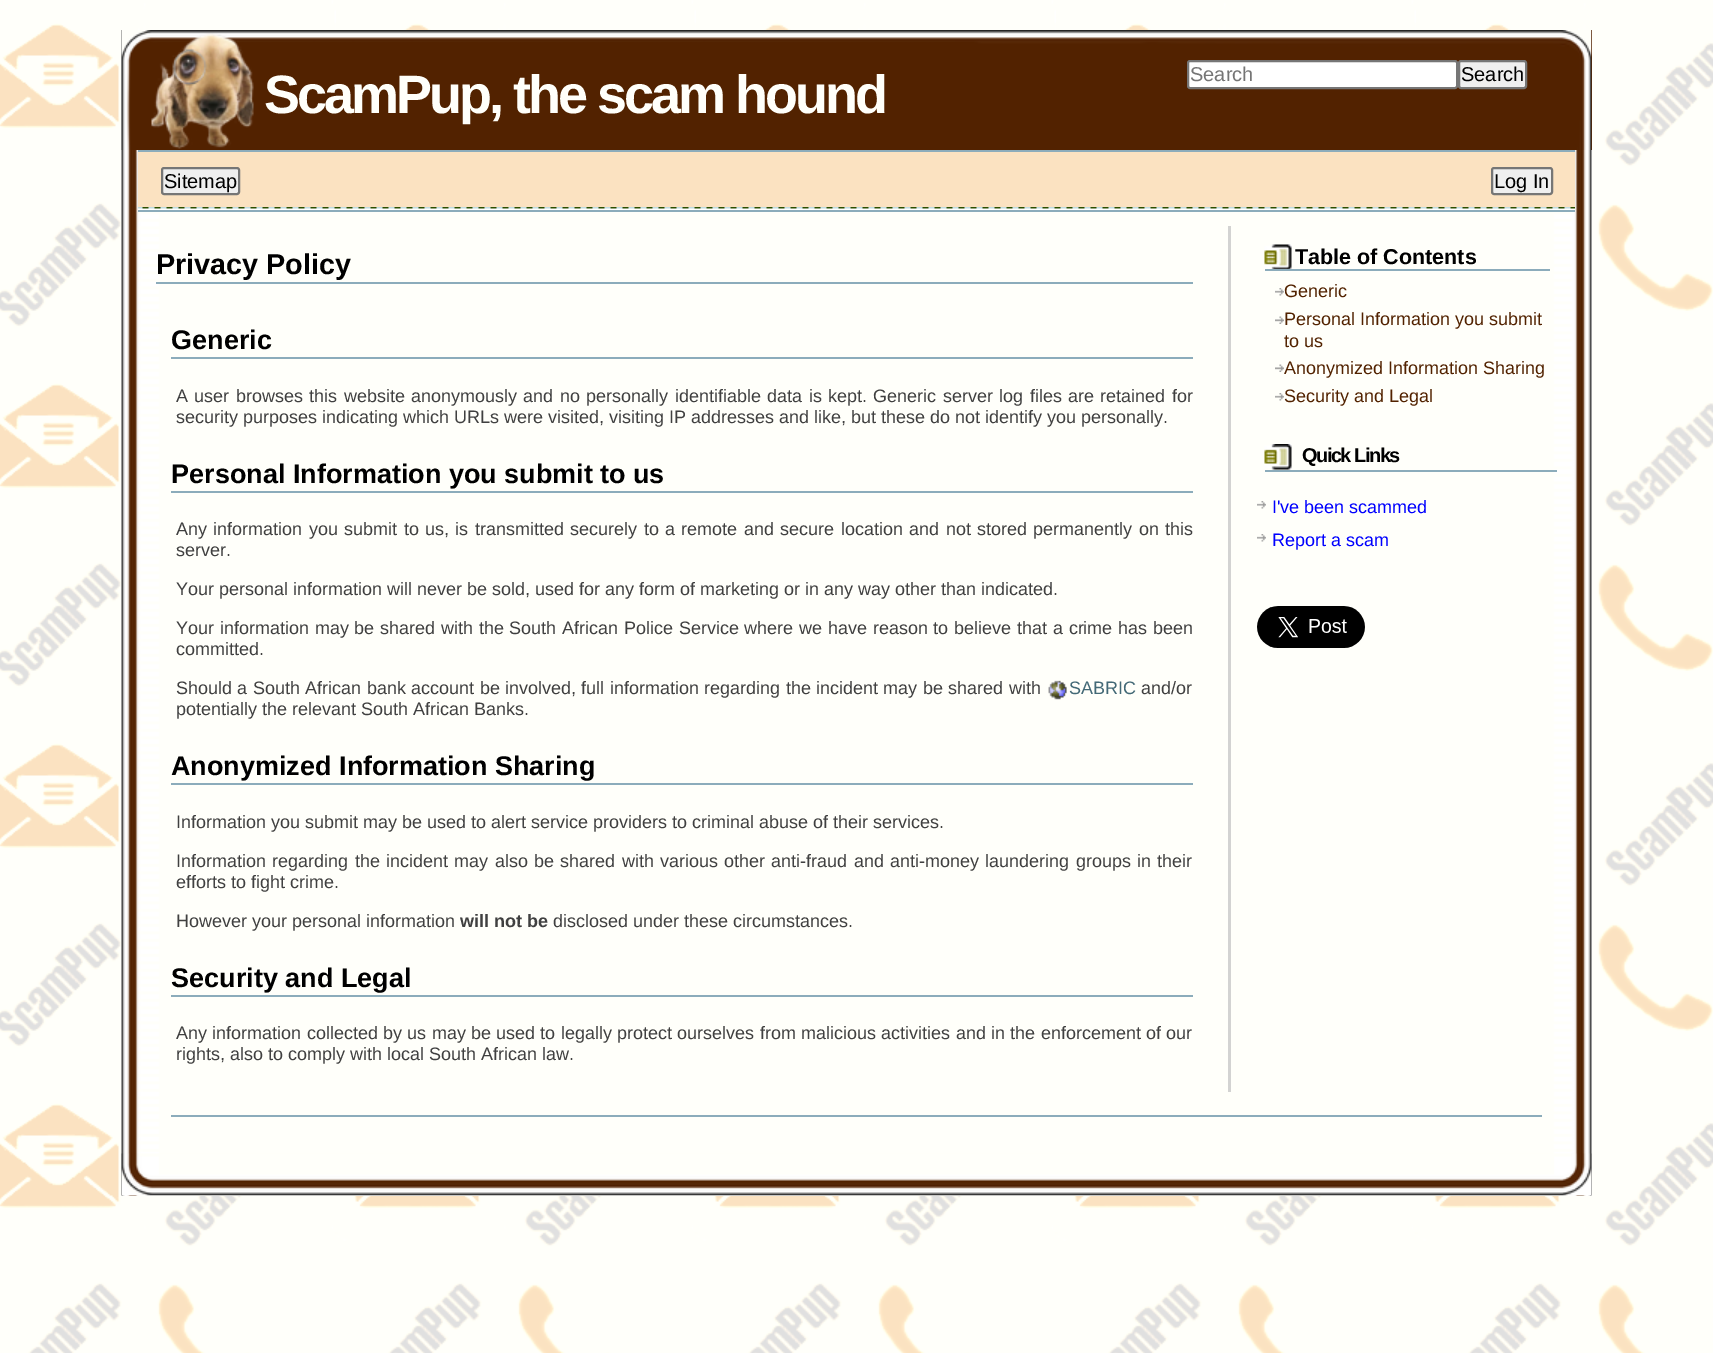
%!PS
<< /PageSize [1713 1353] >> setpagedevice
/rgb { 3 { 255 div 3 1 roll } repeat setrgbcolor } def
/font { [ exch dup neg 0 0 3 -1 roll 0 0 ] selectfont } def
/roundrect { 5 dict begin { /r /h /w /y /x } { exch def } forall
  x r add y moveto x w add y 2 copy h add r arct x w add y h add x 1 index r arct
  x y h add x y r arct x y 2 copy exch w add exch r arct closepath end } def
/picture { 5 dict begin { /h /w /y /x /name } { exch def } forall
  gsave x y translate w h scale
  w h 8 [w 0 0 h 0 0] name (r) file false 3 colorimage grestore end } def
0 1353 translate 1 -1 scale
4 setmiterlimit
255 255 255 rgb
0 0 1713 1353 rectfill
(img/1.rgb) 0 0 1713 1353 picture
122 150 1470 1046 rectfill
(img/2.rgb) 121 30 1471 1166 picture
82 34 1 rgb
1591 30 1 120 rectfill
(img/3.rgb) 121 30 1471 120 picture
255 255 255 rgb
1188 61 269 27 2 roundrect gsave fill grestore
118 118 118 rgb
2 setlinewidth
stroke
239 239 239 rgb
1459 61 67 27 2 roundrect gsave fill grestore
118 118 118 rgb
stroke
251 226 193 rgb
138 152 1437 55 rectfill
(img/4.rgb) 138 207 1437 3 picture
140 172 187 rgb
138 150 1437 2 rectfill
138 210 1437 2 rectfill
239 239 239 rgb
162 168 77 26 2 roundrect gsave fill grestore
118 118 118 rgb
stroke
239 239 239 rgb
1492 168 60 26 2 roundrect gsave fill grestore
118 118 118 rgb
stroke
[
  [1228 226 3 866 211 211 210]
  [156 282 1037 2 140 172 187]
  [171 357 1022 2 140 172 187]
  [171 491 1022 2 140 172 187]
] { aload pop rgb rectfill } forall
(img/5.rgb) 1048 680 19 20 picture
171 783 1022 2 rectfill
171 995 1022 2 rectfill
(img/6.rgb) 1264 244 28 25 picture
1265 269 285 2 rectfill
(img/7.rgb) 1275 288 9 8 picture
(img/8.rgb) 1275 316 9 8 picture
(img/8.rgb) 1275 364 9 8 picture
(img/7.rgb) 1275 393 9 8 picture
(img/9.rgb) 1264 444 28 26 picture
1265 470 292 2 rectfill
(img/10.rgb) 1257 501 9 8 picture
(img/10.rgb) 1257 534 9 8 picture
(img/11.rgb) 1257 606 108 42 picture
(img/12.rgb) 121 1153 1471 43 picture
171 1115 1371 2 rectfill
/LiberationSans-Bold 54 font
255 255 250 rgb
264 113 moveto -3 0 (ScamPup, the scam hound) ashow
/LiberationSans-Regular 20 font
117 117 117 rgb
1190 81 moveto (Search) show
0 0 0 rgb
[
  [(Search) 1461 81]
  [(Sitemap) 164 188]
  [(Log In) 1494 188]
] { aload pop moveto show } forall
/LiberationSans-Bold 28.75 font
156 274 moveto (Privacy Policy) show
/LiberationSans-Bold 27 font
171 349 moveto (Generic) show
/LiberationSans-Regular 18 font
64 64 64 rgb
176 402 moveto 1.4 0 32 (A user browses this website anonymously and no personally identifiable data is kept. Generic server log files are retained for) widthshow
176 423 moveto (security purposes indicating which URLs were visited, visiting IP addresses and like, but these do not identify you personally.) show
/LiberationSans-Bold 27 font
0 0 0 rgb
171 483 moveto (Personal Information you submit to us) show
/LiberationSans-Regular 18 font
64 64 64 rgb
176 535 moveto 1.4 0 32 (Any information you submit to us, is transmitted securely to a remote and secure location and not stored permanently on this) widthshow
176 556 moveto (server.) show
176 595 moveto (Your personal information will never be sold, used for any form of marketing or in any way other than indicated.) show
176 634 moveto 0.75 0 32 (Your information may be shared with the South African Police Service where we have reason to believe that a crime has been) widthshow
176 655 moveto (committed.) show
176 694 moveto 0.4 0 32 (Should a South African bank account be involved, full information regarding the incident may be shared with) widthshow
67 105 118 rgb
1069 694 moveto (SABRIC) show
64 64 64 rgb
1141 694 moveto (and/or) show
176 715 moveto (potentially the relevant South African Banks.) show
/LiberationSans-Bold 27 font
0 0 0 rgb
171 775 moveto (Anonymized Information Sharing) show
/LiberationSans-Regular 18 font
64 64 64 rgb
176 828 moveto (Information you submit may be used to alert service providers to criminal abuse of their services.) show
176 867 moveto 1.3 0 32 (Information regarding the incident may also be shared with various other anti-fraud and anti-money laundering groups in their) widthshow
176 888 moveto (efforts to fight crime.) show
176 927 moveto (However your personal information) show
/LiberationSans-Bold 18 font
460 927 moveto (will not be) show
/LiberationSans-Regular 18 font
553 927 moveto (disclosed under these circumstances.) show
/LiberationSans-Bold 27 font
0 0 0 rgb
171 987 moveto (Security and Legal) show
/LiberationSans-Regular 18 font
64 64 64 rgb
176 1039 moveto 0.3 0 32 (Any information collected by us may be used to legally protect ourselves from malicious activities and in the enforcement of our) widthshow
176 1060 moveto (rights, also to comply with local South African law.) show
/LiberationSans-Bold 21.5 font
0 0 0 rgb
1295 264 moveto (Table of Contents) show
/LiberationSans-Regular 18 font
82 34 0 rgb
[
  [(Generic) 1284 297]
  [(Personal Information you submit) 1284 325]
  [(to us) 1284 347]
  [(Anonymized Information Sharing) 1284 374]
  [(Security and Legal) 1284 402]
] { aload pop moveto show } forall
/LiberationSans-Bold 20 font
0 0 0 rgb
1302 462 moveto -1.5 0 (Quick Links) ashow
/LiberationSans-Regular 18 font
0 0 255 rgb
1272 513 moveto (I've been scammed) show
1272 546 moveto (Report a scam) show
showpage
